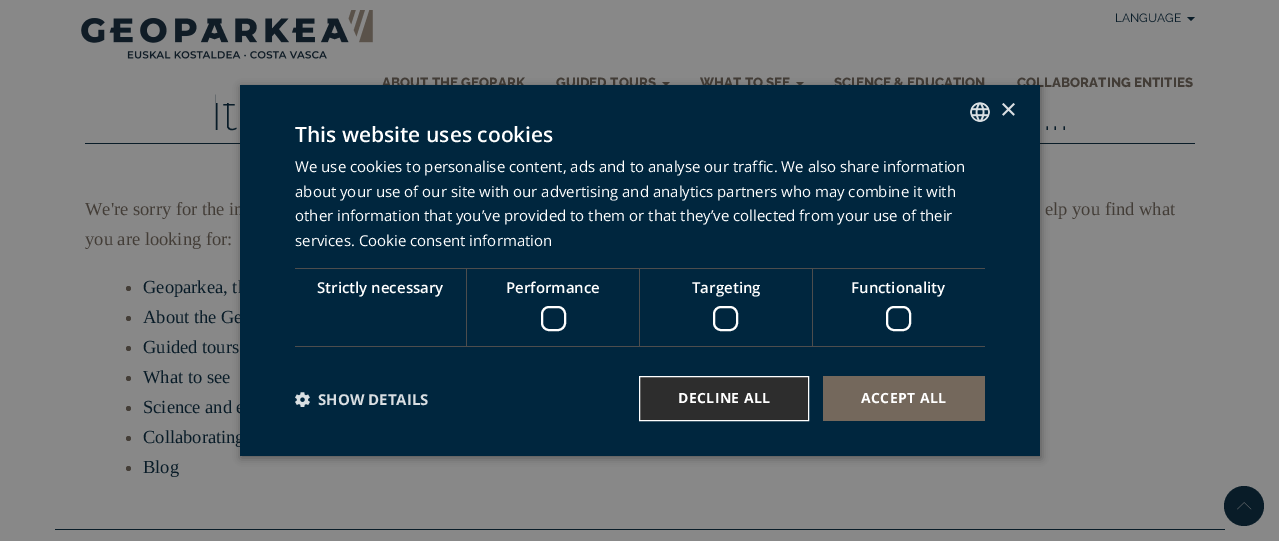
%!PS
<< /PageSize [1279 541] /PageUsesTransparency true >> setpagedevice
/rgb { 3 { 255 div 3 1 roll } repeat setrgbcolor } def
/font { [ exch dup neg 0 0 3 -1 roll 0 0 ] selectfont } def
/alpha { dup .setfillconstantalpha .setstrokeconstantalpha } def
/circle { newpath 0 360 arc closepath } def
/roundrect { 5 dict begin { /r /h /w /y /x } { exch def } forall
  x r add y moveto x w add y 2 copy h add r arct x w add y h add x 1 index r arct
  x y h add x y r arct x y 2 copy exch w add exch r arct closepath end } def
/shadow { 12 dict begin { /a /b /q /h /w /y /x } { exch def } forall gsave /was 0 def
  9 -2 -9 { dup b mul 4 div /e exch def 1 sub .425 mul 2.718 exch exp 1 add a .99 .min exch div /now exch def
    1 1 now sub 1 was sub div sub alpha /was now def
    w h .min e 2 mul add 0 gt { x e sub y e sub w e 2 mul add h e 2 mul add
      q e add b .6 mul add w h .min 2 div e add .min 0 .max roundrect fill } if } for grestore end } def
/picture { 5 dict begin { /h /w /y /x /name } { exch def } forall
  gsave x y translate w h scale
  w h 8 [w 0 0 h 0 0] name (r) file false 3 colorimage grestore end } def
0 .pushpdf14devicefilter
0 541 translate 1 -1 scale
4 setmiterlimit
136 136 136 rgb
0 0 1279 541 rectfill
(img/1.rgb) 81 10 292 49 picture
9 28 40 rgb
1187 17 moveto 1195 17 lineto 1191 21 lineto closepath fill
67 61 55 rgb
662 82 moveto 670 82 lineto 666 86 lineto closepath fill
796 82 moveto 804 82 lineto 800 86 lineto closepath fill
9 28 40 rgb
85 143 1110 1 rectfill
67 61 55 rgb
128.5 288.5 2.5 circle fill
128.5 318.5 2.5 circle fill
128.5 348.5 2.5 circle fill
128.5 378.5 2.5 circle fill
128.5 408.5 2.5 circle fill
128.5 438.5 2.5 circle fill
128.5 468.5 2.5 circle fill
9 28 40 rgb
1244 506 20 circle fill
(img/4.rgb) 1237 502 15 8 picture
55 529 1170 1 rectfill
/Raleway-Regular 12 font
1115 22 moveto (LANGUAGE) show
/Raleway-ExtraBold 13.25 font
67 61 55 rgb
382 87 moveto 0.1 0 (ABOUT THE GEOPARK) ashow
556 87 moveto 0.1 0 (GUIDED TOURS) ashow
700 87 moveto 0.1 0 (WHAT TO SEE) ashow
834 87 moveto 0.1 0 (SCIENCE & EDUCATION) ashow
1017 87 moveto 0.1 0 (COLLABORATING ENTITIES) ashow
/Raleway-ExtraLight 50 font
9 28 40 rgb
211 130 moveto (It) show
136 136 136 rgb
216 94 14 9 rectfill
9 28 40 rgb
1043 130 moveto (...) show
/LiberationSerif-Regular 18.5 font
67 61 55 rgb
[
  [(We're sorry for the in) 85 215]
  [(elp you find what) 1045 215]
  [(you are looking for:) 85 245]
] { aload pop moveto show } forall
9 28 40 rgb
[
  [(Geoparkea, th) 143 293]
  [(About the Ge) 143 323]
  [(Guided tours) 143 353]
  [(What to see) 143 383]
  [(Science and e) 143 413]
  [(Collaborating) 143 443]
  [(Blog) 143 473]
] { aload pop moveto show } forall
0 0 0 rgb
241 87 800 371 0 4 0.35 shadow
0 38 62 rgb
240 85 800 371 rectfill
(img/2.rgb) 970 102 20 20 picture
/LiberationSans-Regular 29 font
217 222 226 rgb
1000 119 moveto (×) show
/OpenSans-SemiBold 21 font
255 255 255 rgb
295 142 moveto (This website uses cookies) show
/OpenSans-Regular 15 font
[
  [(We use cookies to personalise content, ads and to analyse our traffic. We also share information) 295 172]
  [(about your use of our site with our advertising and analytics partners who may combine it with) 295 197]
  [(other information that you’ve provided to them or that they’ve collected from your use of their) 295 221]
  [(services. Cookie consent information) 295 246]
] { aload pop moveto show } forall
[
  [295 268 690 1 77 77 77]
  [466 268 1 79 77 77 77]
  [295 346 172 1 77 77 77]
] { aload pop rgb rectfill } forall
/OpenSans-SemiBold 15 font
255 255 255 rgb
317 293 moveto (Strictly necessary) show
77 77 77 rgb
639 268 1 79 rectfill
467 346 173 1 rectfill
255 255 255 rgb
506 293 moveto (Performance) show
2 setlinewidth
542 307 23 23 7 roundrect stroke
77 77 77 rgb
812 268 1 79 rectfill
640 346 345 1 rectfill
255 255 255 rgb
692 293 moveto (Targeting) show
714 307 23 23 7 roundrect stroke
851 293 moveto (Functionality) show
887 307 23 23 7 roundrect stroke
(img/3.rgb) 295 392 15 15 picture
/OpenSans-Bold 15 font
217 222 226 rgb
318 405 moveto (SHOW DETAILS) show
45 45 45 rgb
639.5 376.5 moveto 808.5 376.5 lineto 808.5 420.5 lineto 639.5 420.5 lineto closepath gsave fill grestore
255 255 255 rgb
1 setlinewidth
stroke
/OpenSans-Bold 14 font
678 403 moveto 0.4 0 (DECLINE ALL) ashow
116 104 92 rgb
823 376 162 45 rectfill
255 255 255 rgb
861 403 moveto 0.4 0 (ACCEPT ALL) ashow
.poppdf14devicefilter showpage
